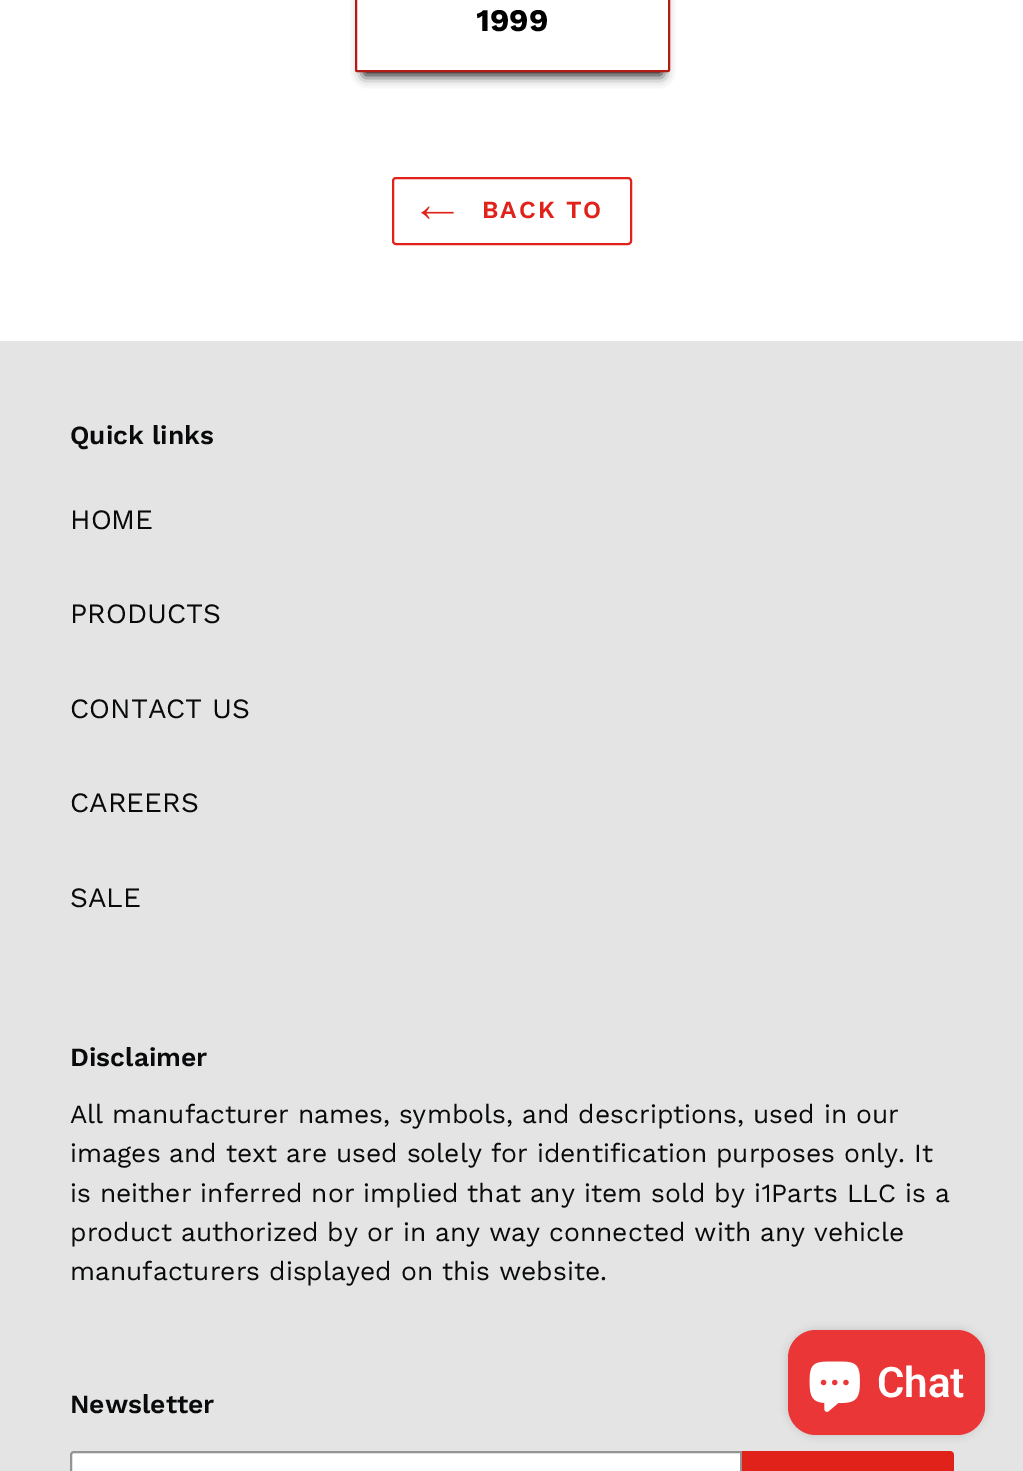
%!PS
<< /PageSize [1023 1471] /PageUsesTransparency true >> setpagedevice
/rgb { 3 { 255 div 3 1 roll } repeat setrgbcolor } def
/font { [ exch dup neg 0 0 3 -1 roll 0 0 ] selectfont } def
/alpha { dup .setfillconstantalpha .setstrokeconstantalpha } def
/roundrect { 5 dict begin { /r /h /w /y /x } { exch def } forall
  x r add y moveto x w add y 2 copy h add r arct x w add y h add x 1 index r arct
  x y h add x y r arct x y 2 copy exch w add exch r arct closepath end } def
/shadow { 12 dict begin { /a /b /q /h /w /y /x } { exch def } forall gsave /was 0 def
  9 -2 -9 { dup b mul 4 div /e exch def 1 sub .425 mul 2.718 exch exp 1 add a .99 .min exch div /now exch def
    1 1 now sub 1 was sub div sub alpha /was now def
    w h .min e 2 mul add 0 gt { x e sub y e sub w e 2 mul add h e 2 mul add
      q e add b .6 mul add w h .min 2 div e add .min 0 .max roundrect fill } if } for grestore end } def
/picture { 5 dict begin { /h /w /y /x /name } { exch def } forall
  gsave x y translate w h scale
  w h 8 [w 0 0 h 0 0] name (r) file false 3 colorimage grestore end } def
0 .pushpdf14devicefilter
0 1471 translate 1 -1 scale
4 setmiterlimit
255 255 255 rgb
0 0 1023 1471 rectfill
0 0 0 rgb
364 -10 298 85 0 6 1 shadow
255 255 255 rgb
356 -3 313 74 1 roundrect gsave fill grestore
179 27 21 rgb
2 setlinewidth
stroke
225 34 26 rgb
393 178 238 66 3 roundrect stroke
(img/1.rgb) 421 206 33 13 picture
228 228 228 rgb
0 341 1023 1130 rectfill
255 255 255 rgb
74 1452 moveto 741 1452 lineto 741 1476 lineto 74 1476 lineto 72.5 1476 71 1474.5 71 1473 curveto 71 1455 lineto 71 1453.5 72.5 1452 74 1452 curveto closepath gsave fill grestore
148 148 148 rgb
stroke
225 34 26 rgb
742 1451 moveto 950 1451 lineto 952 1451 954 1453 954 1455 curveto 954 1471 lineto 954 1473 952 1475 950 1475 curveto 742 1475 lineto closepath fill
0 0 0 rgb
788 1330 197 105 28 4.5 0.15 shadow
234 54 54 rgb
788 1330 197 105 28 roundrect fill
(img/2.rgb) 809 1361 51 51 picture
/WorkSans-Bold 31.5 font
0 0 0 rgb
476 31 moveto (1999) show
/WorkSans-SemiBold 24.5 font
225 34 26 rgb
482 218 moveto 2 0 (BACK TO) ashow
/WorkSans-SemiBold 26.25 font
9 10 11 rgb
70 444 moveto (Quick links) show
/WorkSans-Regular 28 font
[
  [(HOME) 70 529]
  [(PRODUCTS) 70 623]
  [(CONTACT US) 70 718]
  [(CAREERS) 70 812]
  [(SALE) 70 907]
] { aload pop moveto show } forall
/WorkSans-SemiBold 26.25 font
70 1066 moveto (Disclaimer) show
/WorkSans-Regular 26.25 font
[
  [(All manufacturer names, symbols, and descriptions, used in our) 70 1123]
  [(images and text are used solely for identification purposes only. It) 70 1162]
  [(is neither inferred nor implied that any item sold by i1Parts LLC is a) 70 1202]
  [(product authorized by or in any way connected with any vehicle) 70 1241]
  [(manufacturers displayed on this website.) 70 1280]
] { aload pop moveto show } forall
/WorkSans-SemiBold 26.25 font
70 1413 moveto (Newsletter) show
/Roboto-SemiBold 42 font
255 255 255 rgb
877 1397 moveto (Chat) show
.poppdf14devicefilter showpage
